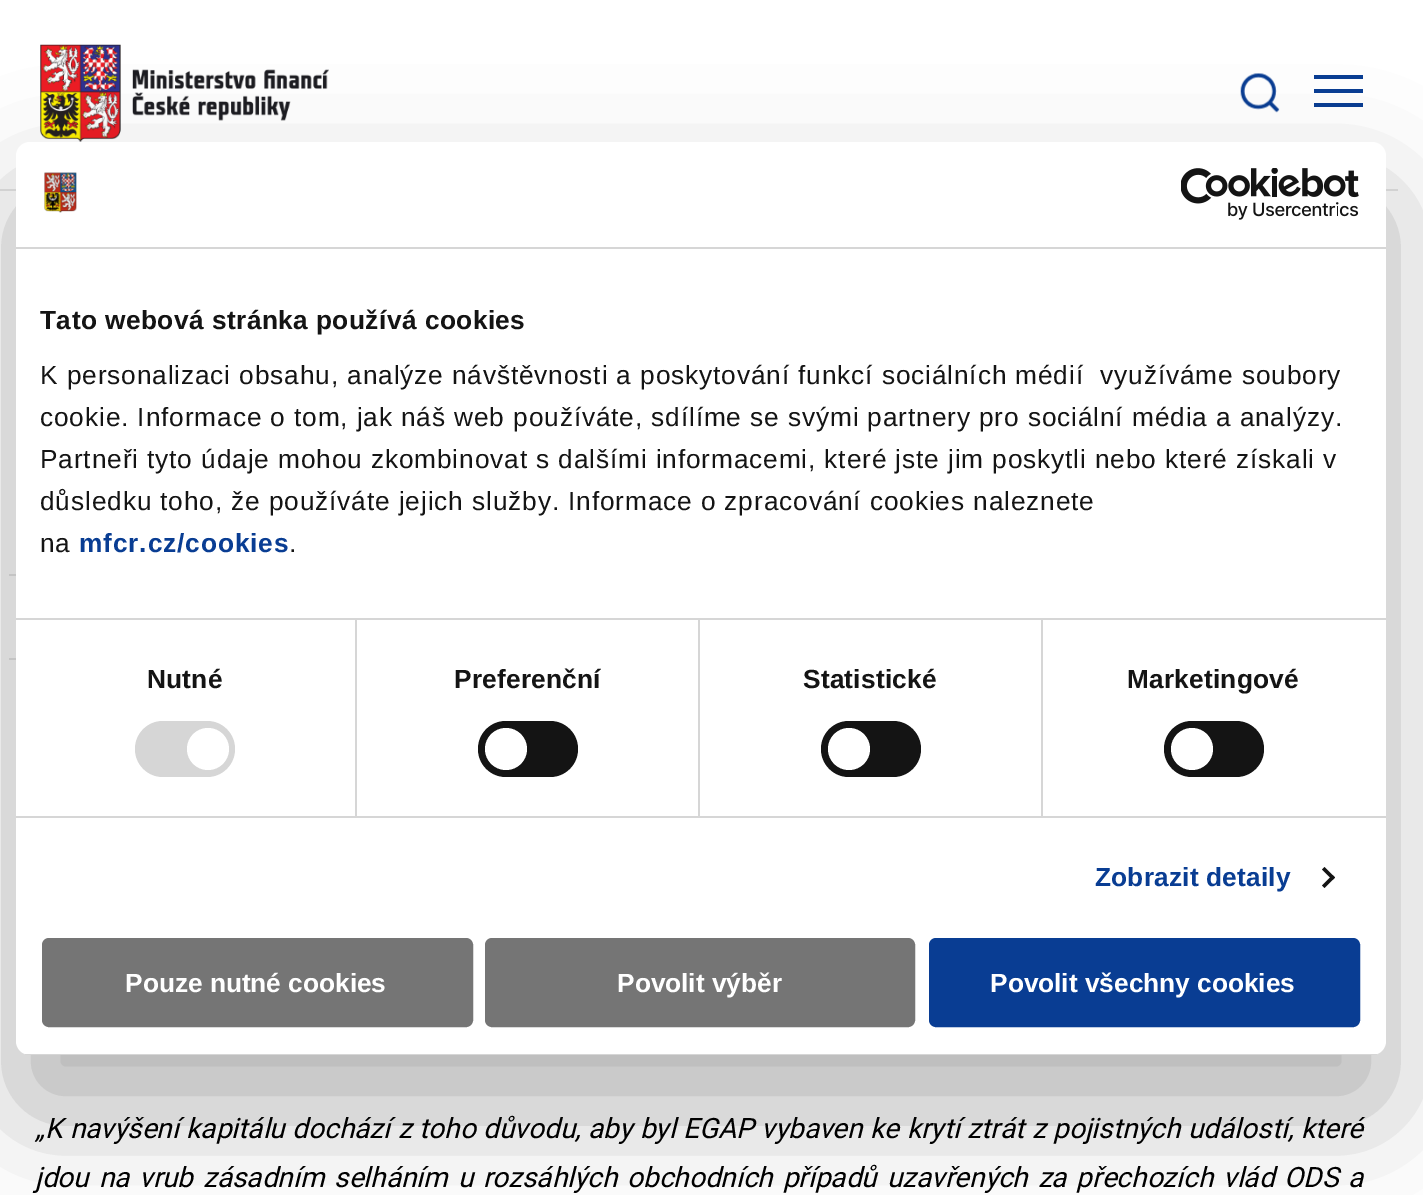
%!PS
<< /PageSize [1423 1195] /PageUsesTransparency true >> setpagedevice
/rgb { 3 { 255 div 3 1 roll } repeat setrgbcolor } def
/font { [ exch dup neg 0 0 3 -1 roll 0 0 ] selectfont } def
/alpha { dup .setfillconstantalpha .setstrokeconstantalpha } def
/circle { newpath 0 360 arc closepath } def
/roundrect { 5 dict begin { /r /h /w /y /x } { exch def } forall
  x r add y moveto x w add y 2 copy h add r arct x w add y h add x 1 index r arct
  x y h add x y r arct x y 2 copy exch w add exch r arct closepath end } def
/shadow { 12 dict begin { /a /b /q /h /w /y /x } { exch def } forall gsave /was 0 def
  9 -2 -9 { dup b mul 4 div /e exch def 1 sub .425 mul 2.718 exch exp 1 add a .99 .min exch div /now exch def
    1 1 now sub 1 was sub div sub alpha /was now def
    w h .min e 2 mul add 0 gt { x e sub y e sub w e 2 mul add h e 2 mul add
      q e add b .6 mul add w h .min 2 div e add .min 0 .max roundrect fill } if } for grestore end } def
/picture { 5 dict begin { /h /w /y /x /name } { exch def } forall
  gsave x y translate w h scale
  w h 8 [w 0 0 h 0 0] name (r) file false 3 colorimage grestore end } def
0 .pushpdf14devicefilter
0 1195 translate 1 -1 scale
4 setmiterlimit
255 255 255 rgb
0 0 1423 1195 rectfill
230 230 230 rgb
0 189 1398 2 rectfill
(img/3.rgb) 40 44 289 98 picture
(img/4.rgb) 1240 73 40 40 picture
[
  [1314 75 49 4 9 61 147]
  [1314 89 49 4 9 61 147]
  [1314 103 49 4 9 61 147]
  [9 574 7 2 230 230 230]
  [9 658 7 2 230 230 230]
] { aload pop rgb rectfill } forall
0 0 0 rgb
16 198 1370 913 14 59.5 0.3 shadow
255 255 255 rgb
16 142 1370 913 14 roundrect fill
214 214 214 rgb
16 247 1370 2 rectfill
(img/1.rgb) 44 172 33 41 picture
(img/2.rgb) 1181 168 178 52 picture
[
  [16 618 1370 2 214 214 214]
  [16 816 1370 2 214 214 214]
  [355 620 2 196 214 214 214]
] { aload pop rgb rectfill } forall
135 721 100 56 28 roundrect fill
255 255 255 rgb
208 749 21 circle fill
214 214 214 rgb
698 620 2 196 rectfill
20 20 20 rgb
478 721 100 56 28 roundrect fill
255 255 255 rgb
506 749 21 circle fill
214 214 214 rgb
1041 620 2 196 rectfill
20 20 20 rgb
821 721 100 56 28 roundrect fill
255 255 255 rgb
849 749 21 circle fill
20 20 20 rgb
1164 721 100 56 28 roundrect fill
255 255 255 rgb
1192 749 21 circle fill
20 20 20 rgb
1324.5 867 moveto 1335 877.5 lineto 1332.5 880 lineto 1322 869.5 lineto closepath fill
1332.5 875 moveto 1335 877.5 lineto 1324.5 888 lineto 1322 885.5 lineto closepath fill
gsave
16 142 1370 913 14 roundrect clip newpath
214 214 214 rgb
25 1054 1352 1 rectfill
grestore
117 117 117 rgb
44 940 427 85 5 roundrect gsave fill grestore
4 setlinewidth
stroke
487 940 426 85 5 roundrect gsave fill grestore
stroke
9 61 147 rgb
931 940 427 85 5 roundrect gsave fill grestore
stroke
/LiberationSans-Bold 26.25 font
20 20 20 rgb
40 329 moveto 0.45 0 (Tato webová stránka používá cookies) ashow
/LiberationSans-Regular 26.25 font
40 384 moveto 0.88 0 (K personalizaci obsahu, analýze návštěvnosti a poskytování funkcí sociálních médií  využíváme soubory) ashow
40 426 moveto 0.88 0 (cookie. Informace o tom, jak náš web používáte, sdílíme se svými partnery pro sociální média a analýzy.) ashow
40 468 moveto 0.88 0 (Partneři tyto údaje mohou zkombinovat s dalšími informacemi, které jste jim poskytli nebo které získali v) ashow
40 510 moveto 0.88 0 (důsledku toho, že používáte jejich služby. Informace o zpracování cookies naleznete) ashow
40 552 moveto 0.88 0 (na) ashow
/LiberationSans-Bold 26.25 font
9 61 147 rgb
79 552 moveto 0.88 0 (mfcr.cz/cookies) ashow
/LiberationSans-Regular 26.25 font
20 20 20 rgb
289 552 moveto 0.88 0 (.) ashow
/LiberationSans-Bold 26.25 font
147 688 moveto 0.2 0 (Nutné) ashow
454 688 moveto 0.2 0 (Preferenční) ashow
803 688 moveto 0.2 0 (Statistické) ashow
1127 688 moveto 0.2 0 (Marketingové) ashow
9 61 147 rgb
1095 886 moveto 0.2 0 (Zobrazit detaily) ashow
255 255 255 rgb
[
  [(Pouze nutné cookies) 125 992]
  [(Povolit výběr) 617 992]
  [(Povolit všechny cookies) 990 992]
] { aload pop moveto show } forall
/Roboto-Italic 28 font
0 0 0 rgb
35 1138 moveto 0.5 0 32 („K navýšení kapitálu dochází z toho důvodu, aby byl EGAP vybaven ke krytí ztrát z pojistných událostí, které) widthshow
35 1187 moveto 2.75 0 32 (jdou na vrub zásadním selháním u rozsáhlých obchodních případů uzavřených za přechozích vlád ODS a) widthshow
.poppdf14devicefilter showpage
